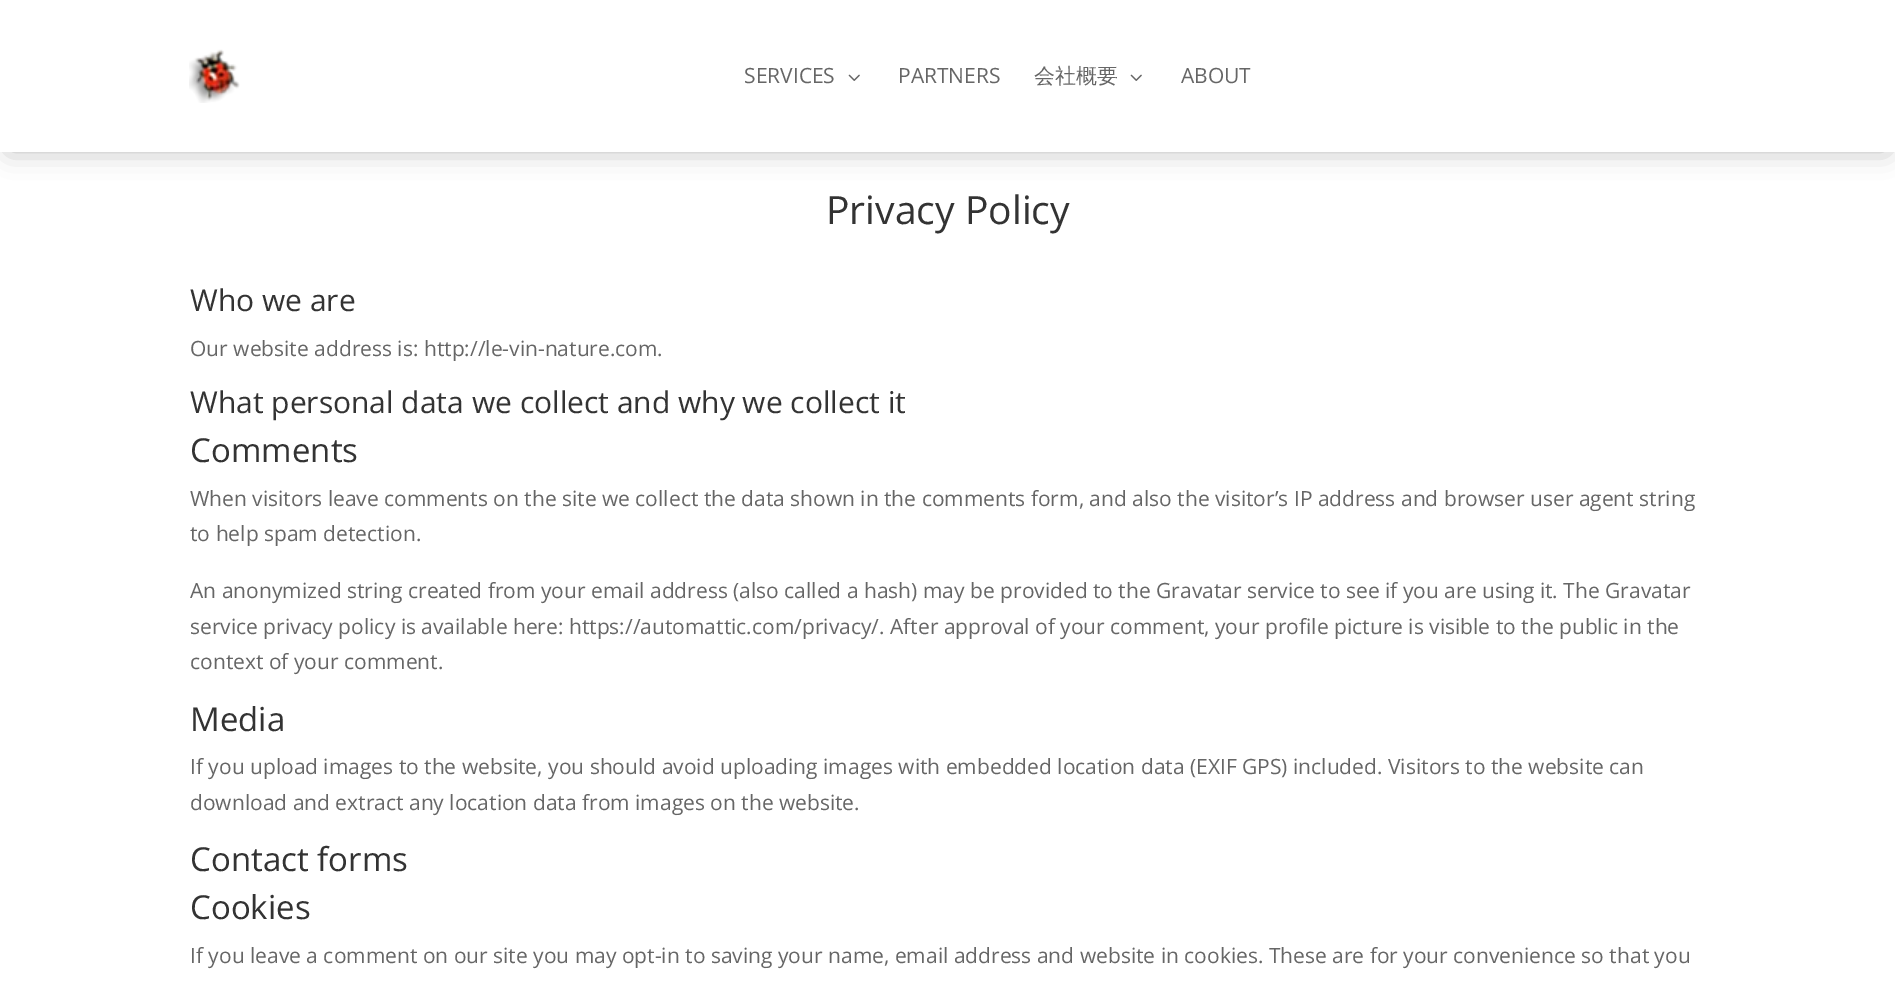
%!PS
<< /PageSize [1895 987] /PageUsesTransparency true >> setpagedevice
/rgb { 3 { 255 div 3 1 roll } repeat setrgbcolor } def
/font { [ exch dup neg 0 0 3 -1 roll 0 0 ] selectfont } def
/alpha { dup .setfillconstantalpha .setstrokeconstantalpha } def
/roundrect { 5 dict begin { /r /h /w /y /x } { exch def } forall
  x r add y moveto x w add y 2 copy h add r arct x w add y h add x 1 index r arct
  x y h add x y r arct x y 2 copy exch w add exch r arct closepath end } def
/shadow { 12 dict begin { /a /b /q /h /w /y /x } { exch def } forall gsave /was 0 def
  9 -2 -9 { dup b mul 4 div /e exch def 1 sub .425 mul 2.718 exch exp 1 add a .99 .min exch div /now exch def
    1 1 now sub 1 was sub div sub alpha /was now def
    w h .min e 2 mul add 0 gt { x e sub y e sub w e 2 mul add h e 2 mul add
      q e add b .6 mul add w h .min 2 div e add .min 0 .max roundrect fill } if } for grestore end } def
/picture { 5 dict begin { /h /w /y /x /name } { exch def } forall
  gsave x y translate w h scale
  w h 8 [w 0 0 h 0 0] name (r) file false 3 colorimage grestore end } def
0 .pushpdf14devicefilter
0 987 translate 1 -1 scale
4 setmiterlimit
255 255 255 rgb
0 0 1895 987 rectfill
0 0 0 rgb
9 17 1878 133 0 13.5 0.3 shadow
255 255 255 rgb
0 0 1895 152 rectfill
(img/1.rgb) 189 49 51 54 picture
(img/2.rgb) 848 74 12 7 picture
(img/2.rgb) 1130 74 12 7 picture
/OpenSans-Regular 21 font
102 102 102 rgb
744 83 moveto (SERVICES) show
898 83 moveto (PARTNERS) show
/WenQuanYiZenHei-Medium 21 font
1034 83 moveto (会社概要) show
/OpenSans-Regular 21 font
1181 83 moveto (ABOUT) show
/OpenSans-Regular 39 font
51 51 51 rgb
826 224 moveto (Privacy Policy) show
/OpenSans-Regular 30 font
190 311 moveto (Who we are) show
/OpenSans-Regular 21 font
102 102 102 rgb
190 356 moveto (Our website address is: http://le-vin-nature.com.) show
/OpenSans-Regular 30 font
51 51 51 rgb
190 413 moveto (What personal data we collect and why we collect it) show
/OpenSans-Regular 33 font
190 462 moveto (Comments) show
/OpenSans-Regular 21 font
102 102 102 rgb
[
  [(When visitors leave comments on the site we collect the data shown in the comments form, and also the visitor’s IP address and browser user agent string) 190 506]
  [(to help spam detection.) 190 541]
  [(An anonymized string created from your email address \(also called a hash\) may be provided to the Gravatar service to see if you are using it. The Gravatar) 190 598]
  [(service privacy policy is available here: https://automattic.com/privacy/. After approval of your comment, your profile picture is visible to the public in the) 190 634]
  [(context of your comment.) 190 669]
] { aload pop moveto show } forall
/OpenSans-Regular 33 font
51 51 51 rgb
190 731 moveto (Media) show
/OpenSans-Regular 21 font
102 102 102 rgb
190 774 moveto (If you upload images to the website, you should avoid uploading images with embedded location data \(EXIF GPS\) included. Visitors to the website can) show
190 810 moveto (download and extract any location data from images on the website.) show
/OpenSans-Regular 33 font
51 51 51 rgb
190 871 moveto (Contact forms) show
190 919 moveto (Cookies) show
/OpenSans-Regular 21 font
102 102 102 rgb
190 963 moveto (If you leave a comment on our site you may opt-in to saving your name, email address and website in cookies. These are for your convenience so that you) show
.poppdf14devicefilter showpage
